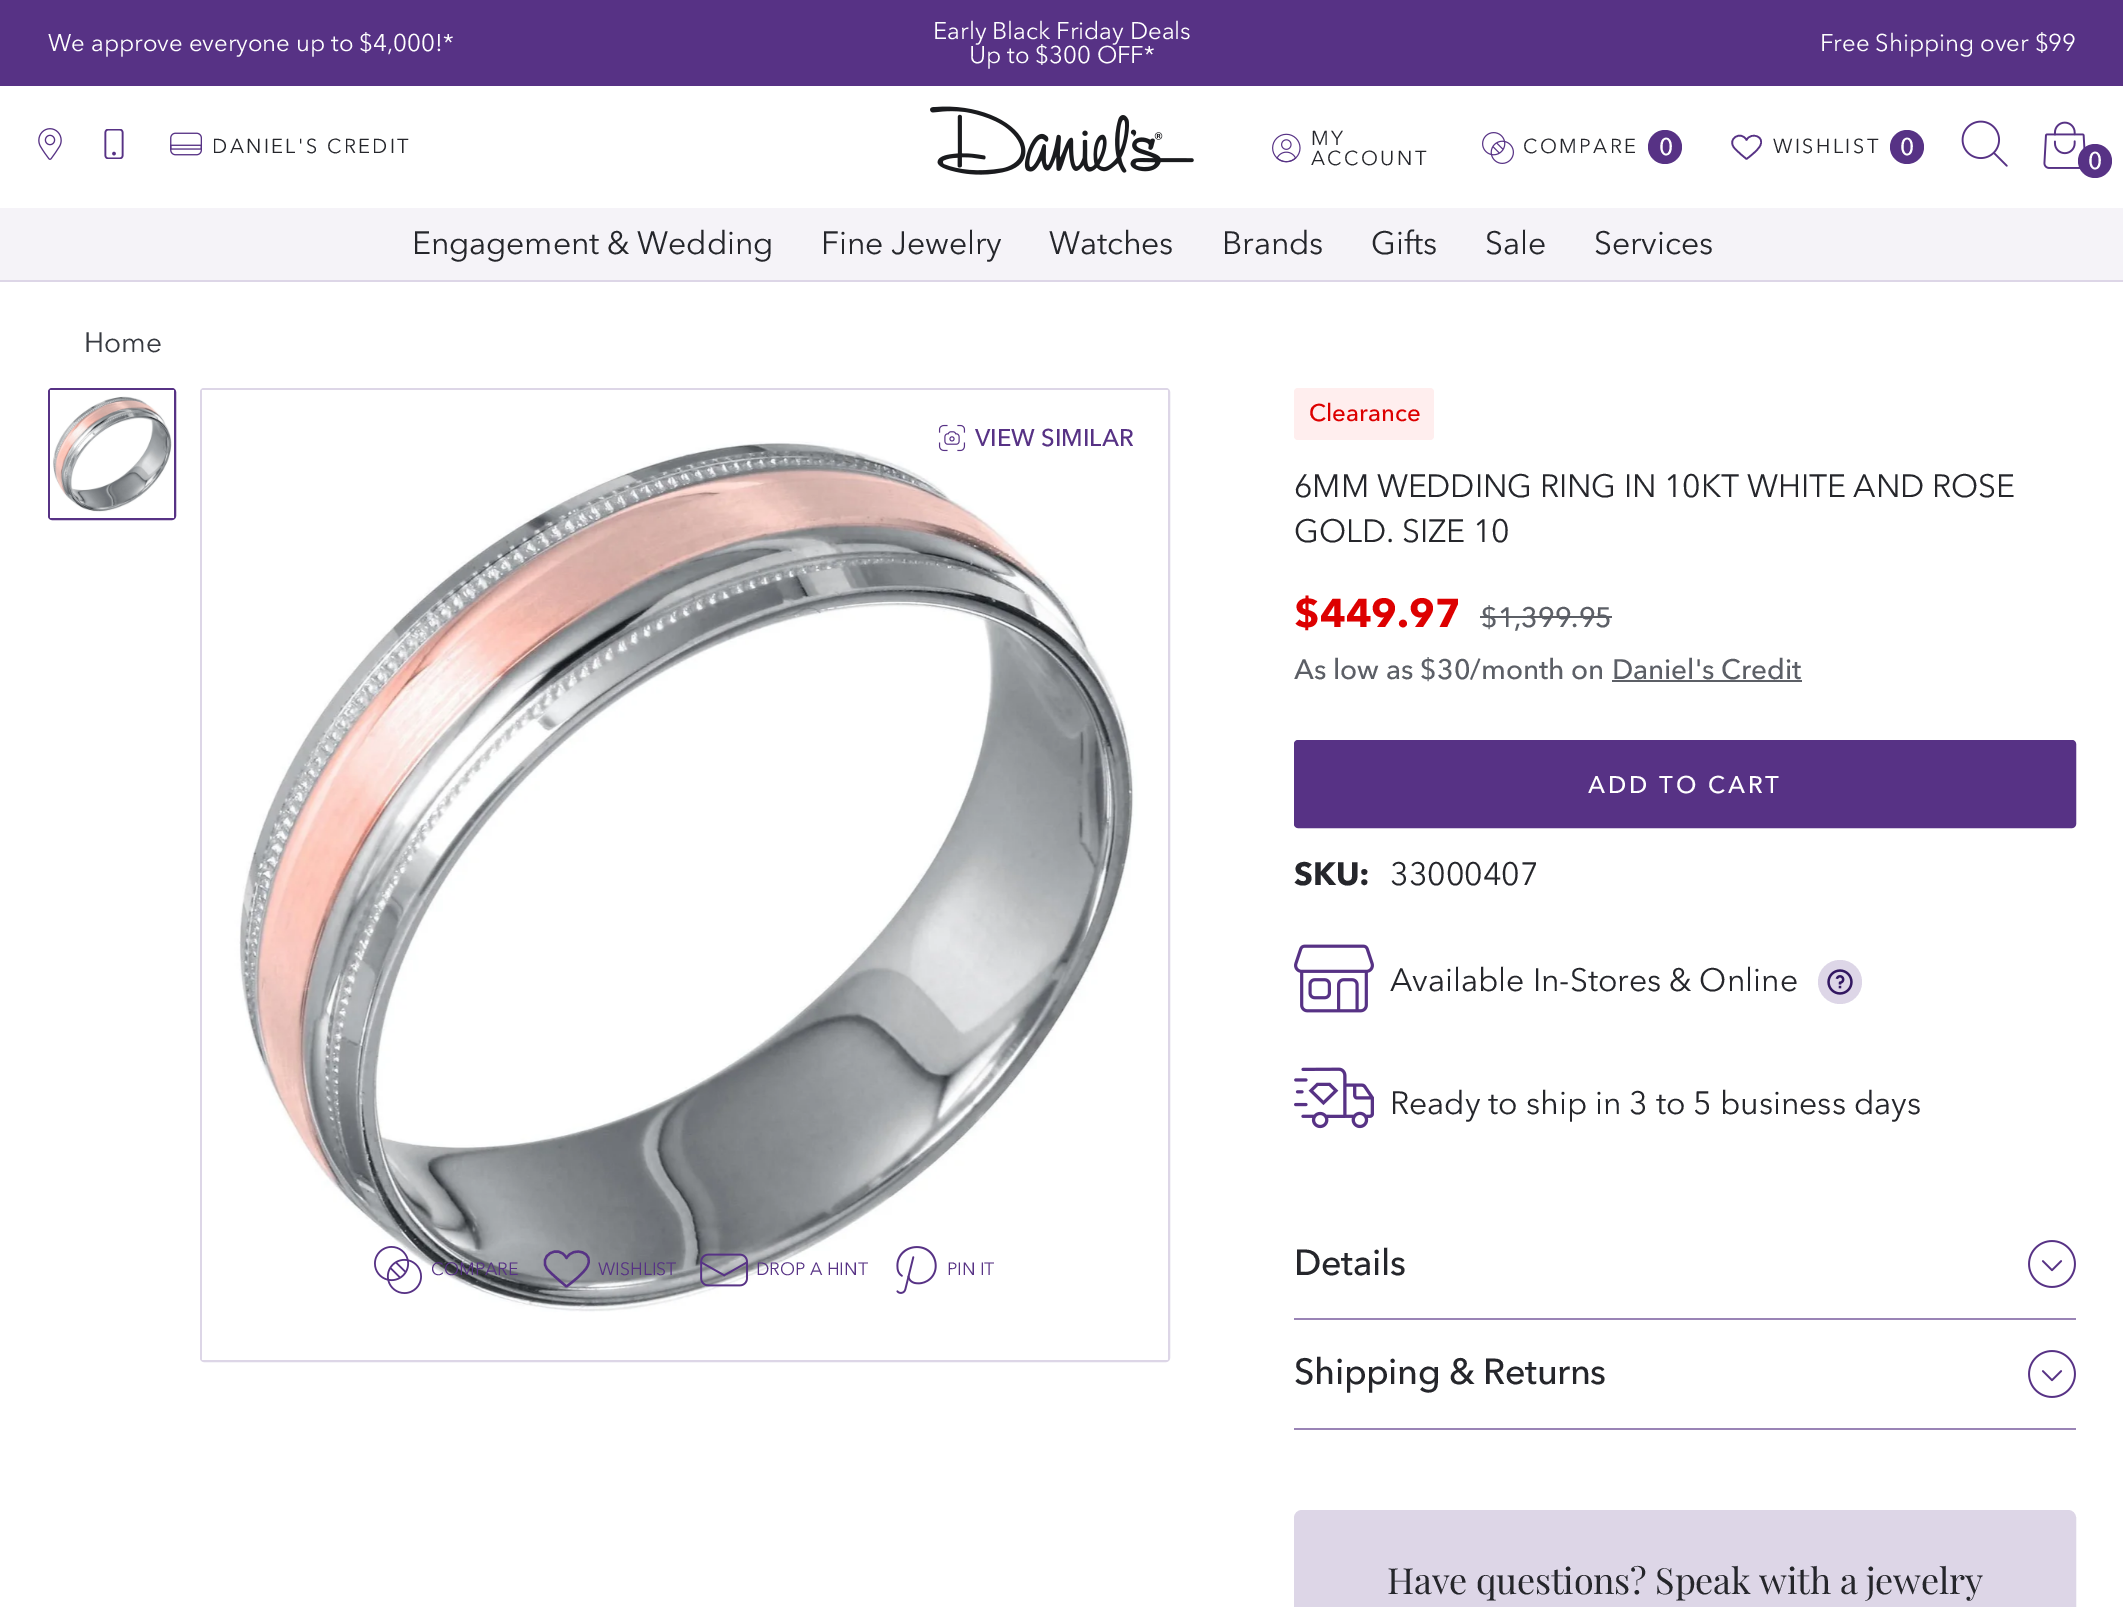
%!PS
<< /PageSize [2123 1607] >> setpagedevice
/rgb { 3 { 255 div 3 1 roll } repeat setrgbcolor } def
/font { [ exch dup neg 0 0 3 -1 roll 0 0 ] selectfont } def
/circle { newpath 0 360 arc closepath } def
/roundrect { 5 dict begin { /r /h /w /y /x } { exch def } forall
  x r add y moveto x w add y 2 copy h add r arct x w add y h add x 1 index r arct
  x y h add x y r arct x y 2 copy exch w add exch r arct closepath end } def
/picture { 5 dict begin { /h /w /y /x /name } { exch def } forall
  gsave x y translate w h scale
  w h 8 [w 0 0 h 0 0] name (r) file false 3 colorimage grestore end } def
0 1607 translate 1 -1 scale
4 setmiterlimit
255 255 255 rgb
0 0 2123 1607 rectfill
87 50 133 rgb
0 0 2123 86 rectfill
(img/1.rgb) 38 128 24 32 picture
(img/2.rgb) 104 129 20 30 picture
(img/3.rgb) 170 132 32 24 picture
(img/4.rgb) 930 106 264 69 picture
(img/5.rgb) 1272 133 29 30 picture
(img/6.rgb) 1482 132 32 32 picture
1665 147 17 circle fill
1.6 setlinewidth
1 setlinecap
1 setlinejoin
1734 147.5 moveto 1727 139 1741 130 1746.5 140 curveto 1751 131.5 1765.5 136.5 1760 146 curveto 1757.5 150.5 1750.5 156 1746.5 159 curveto 1746.5 159 1737 151.5 1734 147.5 curveto closepath stroke
1907 147 17 circle fill
(img/7.rgb) 1961 120 47 47 picture
(img/8.rgb) 2043 121 43 48 picture
2095 161 17 circle fill
245 243 248 rgb
0 208 2123 72 rectfill
221 214 231 rgb
0 280 2123 2 rectfill
87 50 133 rgb
2 setlinewidth
0 setlinecap
0 setlinejoin
49 389 126 130 3 roundrect stroke
(img/9.rgb) 50 390 124 128 picture
221 214 231 rgb
201 389 968 972 3 roundrect stroke
(img/10.rgb) 202 390 966 970 picture
(img/11.rgb) 938 424 28 28 picture
(img/12.rgb) 374 1246 48 48 picture
87 50 133 rgb
2.3 setlinewidth
1 setlinecap
1 setlinejoin
547.5 1269.5 moveto 537 1256.5 558.5 1243 566.5 1258 curveto 573.5 1245.5 595.5 1252.5 587 1267 curveto 583.5 1273.5 572.5 1282 566.5 1286.5 curveto 566.5 1286.5 552.5 1275 547.5 1269.5 curveto closepath stroke
(img/13.rgb) 700 1253 48 34 picture
(img/14.rgb) 896 1246 41 48 picture
255 238 238 rgb
1294 388 140 52 4 roundrect fill
92 95 102 rgb
1480 616 132 2 rectfill
1612 680 190 2 rectfill
87 50 133 rgb
1295 741 780 86 3 roundrect gsave fill grestore
2 setlinewidth
0 setlinecap
0 setlinejoin
stroke
(img/15.rgb) 1294 944 80 69 picture
221 214 231 rgb
1840 982 22 circle fill
(img/16.rgb) 1827 969 26 26 picture
(img/17.rgb) 1294 1067 80 62 picture
154 132 182 rgb
1294 1318 782 2 rectfill
(img/18.rgb) 2028 1240 48 48 picture
1294 1428 782 2 rectfill
(img/18.rgb) 2028 1350 48 48 picture
221 214 231 rgb
1295 1511 780 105 7 roundrect gsave fill grestore
stroke
/AvenirNext-Regular 24 font
255 255 255 rgb
48 51 moveto -0.05 0 (We approve everyone up to $4,000!*) ashow
933 39 moveto -0.05 0 (Early Black Friday Deals) ashow
969 63 moveto -0.05 0 (Up to $300 OFF*) ashow
1820 51 moveto -0.05 0 (Free Shipping over $99) ashow
/AvenirNext-Regular 20 font
37 38 43 rgb
212 153 moveto 2.4 0 (DANIEL'S CREDIT) ashow
1311 145 moveto 2.4 0 (MY) ashow
1311 165 moveto 2.4 0 (ACCOUNT) ashow
1523 153 moveto 2.4 0 (COMPARE) ashow
/AvenirNext-Medium 24 font
255 255 255 rgb
1659 155 moveto (0) show
/AvenirNext-Regular 20 font
37 38 43 rgb
1773 153 moveto 2.4 0 (WISHLIST) ashow
/AvenirNext-Medium 24 font
255 255 255 rgb
1900 155 moveto (0) show
2088 169 moveto -0.05 0 (0) ashow
/AvenirNext-Regular 32 font
37 38 43 rgb
412 254 moveto -0.15 0 (Engagement & Wedding) ashow
821 254 moveto -0.15 0 (Fine Jewelry) ashow
1049 254 moveto -0.15 0 (Watches) ashow
1222 254 moveto -0.15 0 (Brands) ashow
1371 254 moveto -0.15 0 (Gifts) ashow
1485 254 moveto -0.15 0 (Sale) ashow
1594 254 moveto -0.15 0 (Services) ashow
/AvenirNext-Regular 28 font
55 58 64 rgb
84 352 moveto -0.05 0 (Home) ashow
/AvenirNext-Medium 24 font
87 50 133 rgb
975 446 moveto (VIEW SIMILAR) show
/AvenirNext-Regular 17.75 font
[
  [(COMPARE) 431 1275]
  [(WISHLIST) 598 1275]
  [(DROP A HINT) 756 1275]
] { aload pop moveto show } forall
947 1275 moveto -0.05 0 (PIN IT) ashow
/AvenirNext-Medium 24 font
221 0 0 rgb
1309 421 moveto (Clearance) show
/AvenirNext-Regular 32 font
37 38 43 rgb
1294 497 moveto -0.15 0 (6MM WEDDING RING IN 10KT WHITE AND ROSE) ashow
1294 542 moveto -0.15 0 (GOLD. SIZE 10) ashow
/AvenirNext-Bold 40 font
221 0 0 rgb
1294 627 moveto -0.05 0 ($449.97) ashow
/AvenirNext-Medium 28 font
92 95 102 rgb
1481 627 moveto -0.05 0 ($1,399.95) ashow
1294 679 moveto -0.05 0 (As low as $30/month on Daniel's Credit) ashow
/AvenirNext-Medium 24 font
255 255 255 rgb
1588 793 moveto 2.9 0 (ADD TO CART) ashow
/AvenirNext-Bold 32 font
37 38 43 rgb
1294 885 moveto -0.05 0 (SKU:) ashow
/AvenirNext-Regular 32 font
1390 885 moveto -0.05 0 (33000407) ashow
1390 991 moveto -0.05 0 (Available In-Stores & Online) ashow
1390 1114 moveto -0.05 0 (Ready to ship in 3 to 5 business days) ashow
/AvenirNext-Medium 36 font
1294 1275 moveto -0.4 0 (Details) ashow
1294 1384 moveto -0.4 0 (Shipping & Returns) ashow
/PlayfairDisplay-Regular 36 font
1387 1594 moveto -0.2 0 (Have questions? Speak with a jewelry) ashow
showpage
